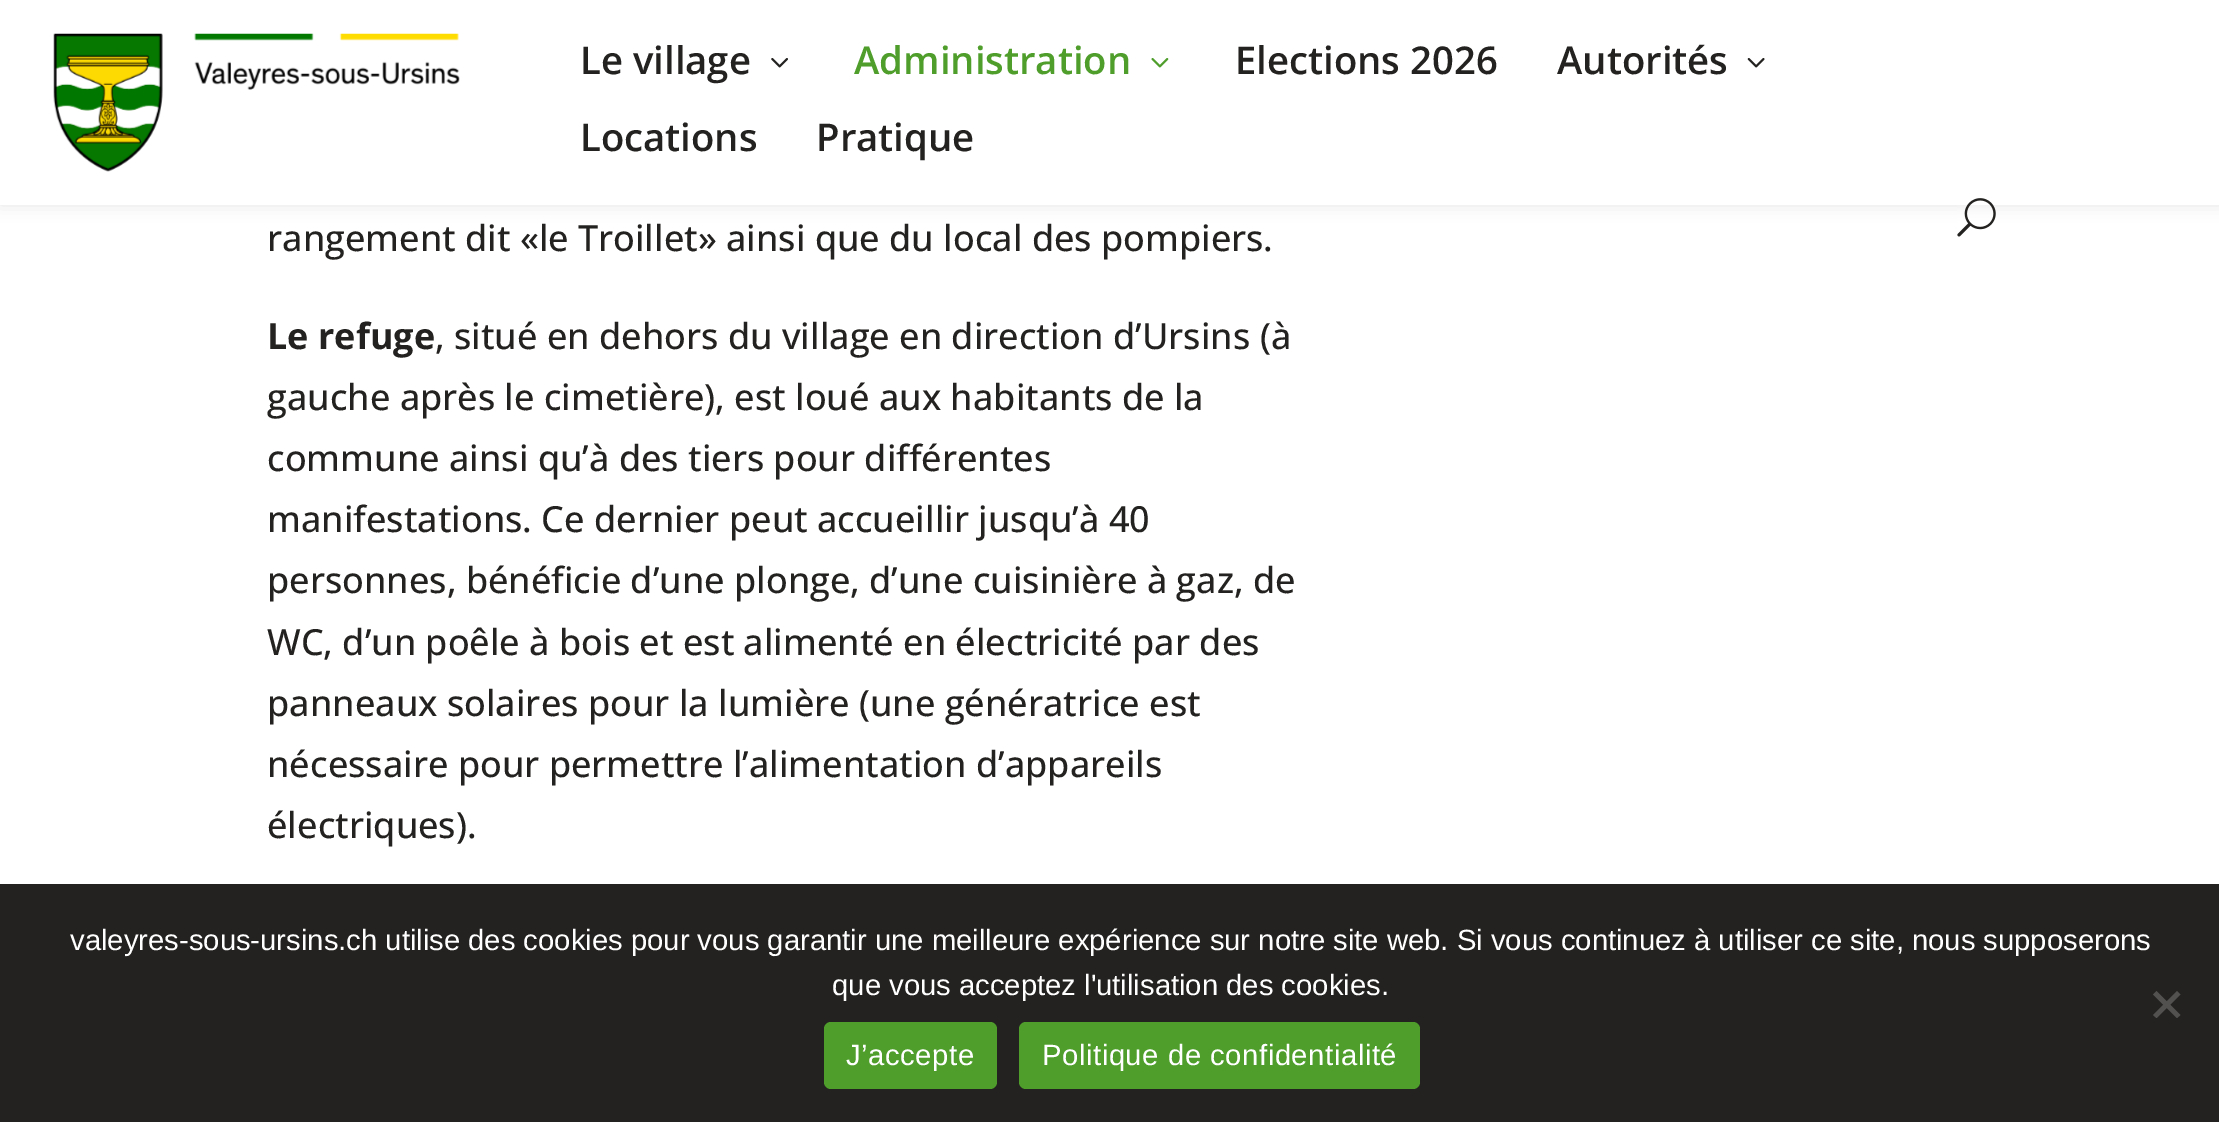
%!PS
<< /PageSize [2219 1122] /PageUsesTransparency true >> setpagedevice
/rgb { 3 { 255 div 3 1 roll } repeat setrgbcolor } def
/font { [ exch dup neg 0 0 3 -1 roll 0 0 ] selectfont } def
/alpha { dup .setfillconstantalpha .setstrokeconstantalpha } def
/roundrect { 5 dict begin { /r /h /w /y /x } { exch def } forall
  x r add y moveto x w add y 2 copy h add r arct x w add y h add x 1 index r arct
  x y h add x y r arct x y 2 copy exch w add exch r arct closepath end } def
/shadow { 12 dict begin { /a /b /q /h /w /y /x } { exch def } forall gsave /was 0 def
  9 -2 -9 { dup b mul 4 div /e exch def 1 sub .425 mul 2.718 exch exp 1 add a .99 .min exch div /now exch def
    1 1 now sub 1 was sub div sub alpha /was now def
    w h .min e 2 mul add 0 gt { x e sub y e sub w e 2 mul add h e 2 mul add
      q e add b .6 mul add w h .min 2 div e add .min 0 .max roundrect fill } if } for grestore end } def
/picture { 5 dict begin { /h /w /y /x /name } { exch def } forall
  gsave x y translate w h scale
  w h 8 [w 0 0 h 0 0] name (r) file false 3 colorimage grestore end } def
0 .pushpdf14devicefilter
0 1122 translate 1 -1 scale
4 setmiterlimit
255 255 255 rgb
0 0 2219 1122 rectfill
0 0 0 rgb
0 0 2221 205 0 8 0.1 shadow
255 255 255 rgb
0 0 2219 205 rectfill
(img/1.rgb) 53 33 407 139 picture
(img/2.rgb) 771 58 17 10 picture
(img/3.rgb) 1151 58 18 10 picture
(img/4.rgb) 1747 58 18 10 picture
(img/5.rgb) 1957 198 39 39 picture
35 34 32 rgb
0 884 2219 238 rectfill
82 81 80 rgb
2177 991 moveto 2180.5 994.5 lineto 2156.5 1018 lineto 2153 1015 lineto closepath fill
2153 994.5 moveto 2156.5 991 lineto 2180.5 1015 lineto 2177 1018 lineto closepath fill
79 158 44 rgb
824 1022 173 67 7 roundrect fill
1019 1022 401 67 7 roundrect fill
/OpenSans-SemiBold 38.25 font
35 34 32 rgb
580 74 moveto (Le village) show
79 158 44 rgb
854 74 moveto (Administration) show
35 34 32 rgb
[
  [(Elections 2026) 1235 74]
  [(Autorités) 1557 74]
  [(Locations) 580 151]
  [(Pratique) 816 151]
] { aload pop moveto show } forall
/OpenSans-Medium 36 font
267 251 moveto (rangement dit «le Troillet» ainsi que du local des pompiers.) show
/OpenSans-Bold 36 font
267 349 moveto (Le refuge) show
/OpenSans-Medium 36 font
[
  [(, situé en dehors du village en direction d’Ursins \(à) 435 349]
  [(gauche après le cimetière\), est loué aux habitants de la) 267 410]
  [(commune ainsi qu’à des tiers pour différentes) 267 471]
  [(manifestations. Ce dernier peut accueillir jusqu’à 40) 267 532]
  [(personnes, bénéficie d’une plonge, d’une cuisinière à gaz, de) 267 593]
  [(WC, d’un poêle à bois et est alimenté en électricité par des) 267 655]
  [(panneaux solaires pour la lumière \(une génératrice est) 267 716]
  [(nécessaire pour permettre l’alimentation d’appareils) 267 777]
  [(électriques\).) 267 838]
] { aload pop moveto show } forall
/LiberationSans-Regular 29.25 font
255 255 255 rgb
70 950 moveto (valeyres-sous-ursins.ch utilise des cookies pour vous garantir une meilleure expérience sur notre site web. Si vous continuez à utiliser ce site, nous supposerons) show
832 995 moveto (que vous acceptez l'utilisation des cookies.) show
846 1065 moveto 0.55 0 (J’accepte) ashow
1042 1065 moveto 0.55 0 (Politique de confidentialité) ashow
.poppdf14devicefilter showpage
